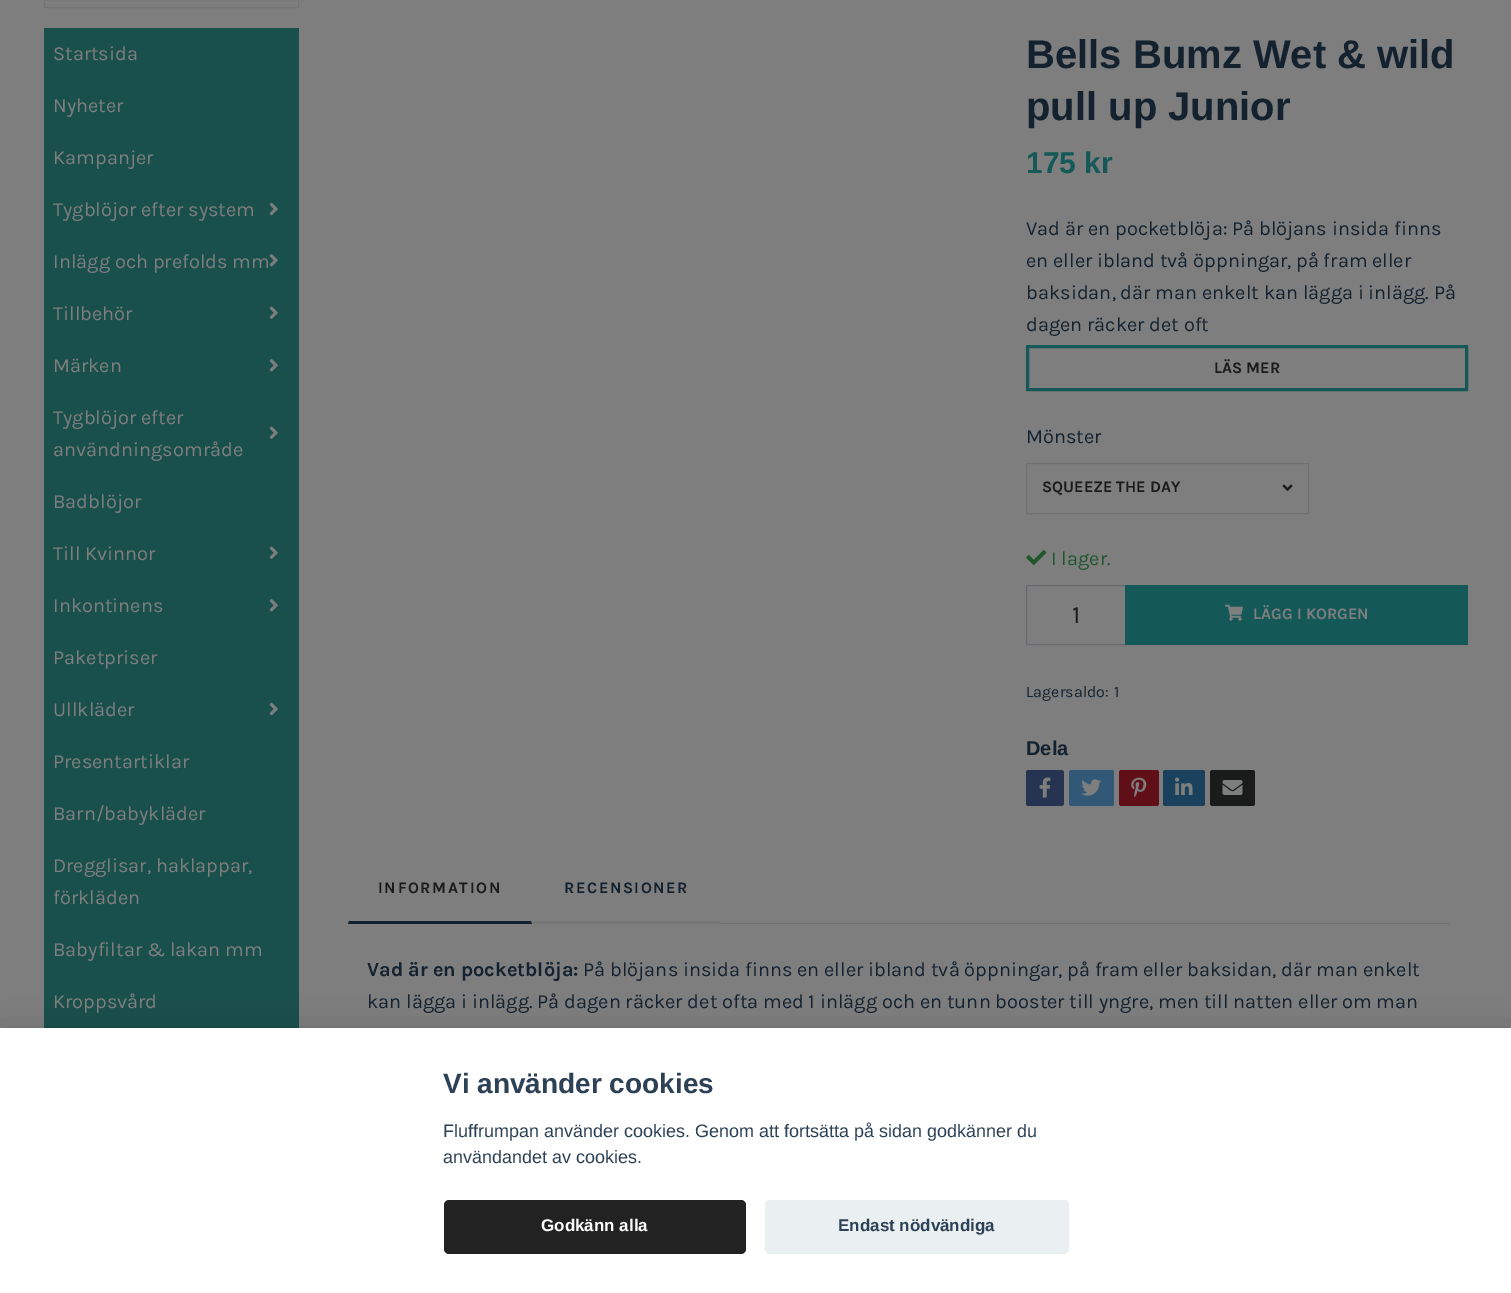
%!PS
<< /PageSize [1511 1293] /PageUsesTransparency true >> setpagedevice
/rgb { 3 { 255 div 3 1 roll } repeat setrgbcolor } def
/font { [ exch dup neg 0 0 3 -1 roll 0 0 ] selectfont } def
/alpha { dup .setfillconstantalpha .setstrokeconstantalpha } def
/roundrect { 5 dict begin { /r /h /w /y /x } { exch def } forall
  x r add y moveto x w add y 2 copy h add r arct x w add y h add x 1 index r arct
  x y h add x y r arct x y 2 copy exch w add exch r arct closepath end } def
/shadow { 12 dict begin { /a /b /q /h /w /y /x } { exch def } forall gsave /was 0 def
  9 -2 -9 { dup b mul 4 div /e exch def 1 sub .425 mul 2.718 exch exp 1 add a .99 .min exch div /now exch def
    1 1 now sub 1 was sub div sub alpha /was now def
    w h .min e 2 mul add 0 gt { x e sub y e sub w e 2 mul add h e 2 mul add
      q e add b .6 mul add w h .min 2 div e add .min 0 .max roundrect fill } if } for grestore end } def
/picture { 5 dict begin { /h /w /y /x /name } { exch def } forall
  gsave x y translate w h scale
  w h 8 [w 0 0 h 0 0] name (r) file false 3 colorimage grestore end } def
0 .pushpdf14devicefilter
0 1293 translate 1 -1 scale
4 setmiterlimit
126 126 127 rgb
0 0 1511 1293 rectfill
116 116 117 rgb
44.5 -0.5 254 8 rectstroke
26 80 76 rgb
44 28 255 1000 rectfill
(img/1.rgb) 269 202 9 14 picture
(img/2.rgb) 269 254 9 13 picture
(img/3.rgb) 269 306 9 13 picture
(img/2.rgb) 269 359 9 13 picture
(img/3.rgb) 269 426 9 13 picture
(img/3.rgb) 269 546 9 13 picture
(img/2.rgb) 269 599 9 13 picture
(img/1.rgb) 269 702 9 14 picture
20 88 87 rgb
3 setlinewidth
1027.5 346.5 439 43 rectstroke
111 113 116 rgb
1 setlinewidth
1026.5 463.5 282 50 rectstroke
(img/4.rgb) 1282 484 11 7 picture
(img/5.rgb) 1026 550 21 15 picture
104 107 110 rgb
1026.5 585.5 99 59 rectstroke
20 88 87 rgb
1125 585 343 60 rectfill
(img/6.rgb) 1225 604 18 17 picture
38 52 81 rgb
1026 770 38 36 2.5 roundrect fill
(img/7.rgb) 1039 777 12 21 picture
49 89 119 rgb
1069 770 45 36 2.5 roundrect fill
(img/8.rgb) 1081 779 21 17 picture
96 15 25 rgb
1119 770 40 36 2.5 roundrect fill
(img/9.rgb) 1131 777 16 21 picture
26 65 93 rgb
1163 770 42 36 2.5 roundrect fill
(img/10.rgb) 1175 777 18 18 picture
26 27 27 rgb
1210 770 45 36 2.5 roundrect fill
(img/11.rgb) 1222 780 21 15 picture
111 113 116 rgb
720 923 730 1 rectfill
20 34 47 rgb
532 924 moveto 348 924 lineto 349 921 lineto 531 921 lineto closepath fill
116 118 120 rgb
721 924 moveto 532 924 lineto 534 921 lineto 720 921 lineto closepath fill
2 2 3 rgb
0 1040 1511 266 0 19 0.28 shadow
255 255 255 rgb
0 1028 1511 265 rectfill
34 34 34 rgb
444 1200 302 54 5 roundrect fill
234 239 242 rgb
765 1200 304 54 5 roundrect fill
/Karla-Regular 20 font
126 126 127 rgb
[
  [(Startsida) 53 60]
  [(Nyheter) 53 112]
  [(Kampanjer) 53 164]
  [(Tygblöjor efter system) 53 216]
  [(Inlägg och prefolds mm) 53 268]
  [(Tillbehör) 53 320]
  [(Märken) 53 372]
  [(Tygblöjor efter) 53 424]
  [(användningsområde) 53 456]
  [(Badblöjor) 53 508]
  [(Till Kvinnor) 53 560]
  [(Inkontinens) 53 612]
  [(Paketpriser) 53 664]
  [(Ullkläder) 53 716]
  [(Presentartiklar) 53 768]
  [(Barn/babykläder) 53 820]
  [(Dregglisar, haklappar,) 53 872]
  [(förkläden) 53 904]
  [(Babyfiltar & lakan mm) 53 956]
  [(Kroppsvård) 53 1008]
] { aload pop moveto show } forall
/Arimo-Bold 40 font
20 34 47 rgb
1026 68 moveto (Bells Bumz Wet & wild) show
1026 120 moveto (pull up Junior) show
/Arimo-Bold 30 font
20 88 87 rgb
1026 173 moveto (175 kr) show
/Karla-Regular 20 font
20 34 47 rgb
[
  [(Vad är en pocketblöja: På blöjans insida finns) 1026 235]
  [(en eller ibland två öppningar, på fram eller) 1026 267]
  [(baksidan, där man enkelt kan lägga i inlägg. På) 1026 299]
  [(dagen räcker det oft) 1026 331]
] { aload pop moveto show } forall
/Karla-Bold 16 font
26 27 27 rgb
1214 373 moveto (LÄS MER) show
/Karla-Regular 20 font
20 34 47 rgb
1026 443 moveto (Mönster) show
/Karla-Bold 16 font
26 27 27 rgb
1042 492 moveto (SQUEEZE THE DAY) show
/Karla-Regular 20 font
29 87 43 rgb
1051 565 moveto (I lager.) show
/Karla-Regular 25 font
26 27 27 rgb
1072 623 moveto (1) show
/Karla-Bold 16 font
126 126 127 rgb
1253 619 moveto (LÄGG I KORGEN) show
/Karla-Regular 16 font
20 34 47 rgb
1026 697 moveto (Lagersaldo:) show
1114 697 moveto (1) show
/Arimo-Bold 20 font
1026 755 moveto (Dela) show
/Karla-Bold 16 font
26 27 27 rgb
378 893 moveto 1.6 0 (INFORMATION) ashow
20 34 47 rgb
564 893 moveto 1.6 0 (RECENSIONER) ashow
/Karla-Bold 20 font
367 976 moveto (Vad är en pocketblöja:) show
/Karla-Regular 20 font
583 976 moveto (På blöjans insida finns en eller ibland två öppningar, på fram eller baksidan, där man enkelt) show
367 1008 moveto (kan lägga i inlägg. På dagen räcker det ofta med 1 inlägg och en tunn booster till yngre, men till natten eller om man) show
/LiberationSans-Bold 28 font
45 65 86 rgb
443 1093 moveto (Vi använder cookies) show
/LiberationSans-Regular 18 font
443 1137 moveto (Fluffrumpan använder cookies. Genom att fortsätta på sidan godkänner du) show
443 1163 moveto (användandet av cookies.) show
/LiberationSans-Bold 17 font
255 255 255 rgb
541 1231 moveto (Godkänn alla) show
45 65 86 rgb
838 1231 moveto (Endast nödvändiga) show
.poppdf14devicefilter showpage
